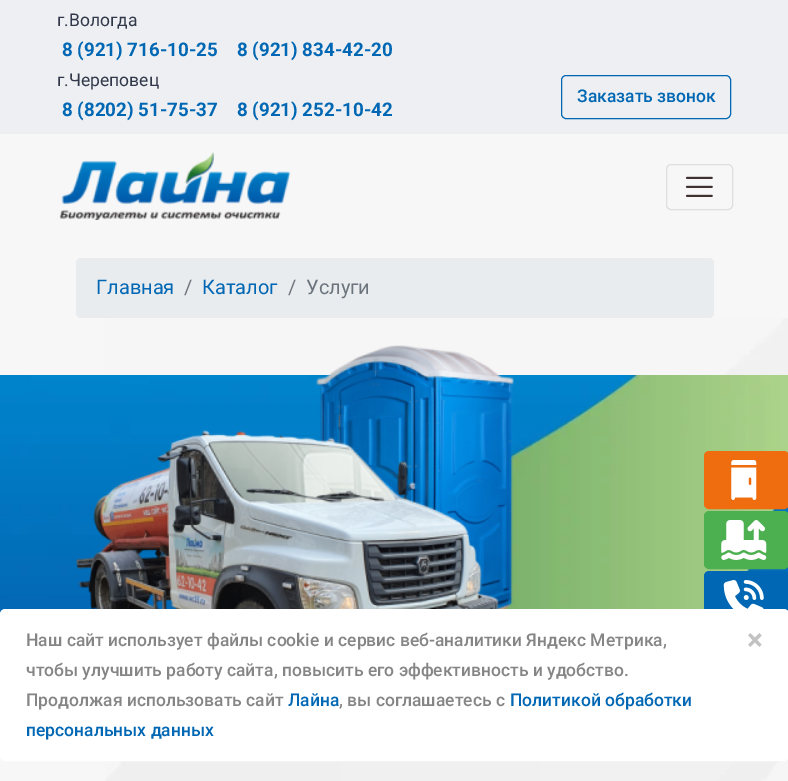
%!PS
<< /PageSize [788 781] >> setpagedevice
/rgb { 3 { 255 div 3 1 roll } repeat setrgbcolor } def
/font { [ exch dup neg 0 0 3 -1 roll 0 0 ] selectfont } def
/roundrect { 5 dict begin { /r /h /w /y /x } { exch def } forall
  x r add y moveto x w add y 2 copy h add r arct x w add y h add x 1 index r arct
  x y h add x y r arct x y 2 copy exch w add exch r arct closepath end } def
/picture { 5 dict begin { /h /w /y /x /name } { exch def } forall
  gsave x y translate w h scale
  w h 8 [w 0 0 h 0 0] name (r) file false 3 colorimage grestore end } def
0 781 translate 1 -1 scale
4 setmiterlimit
247 247 247 rgb
0 0 788 781 rectfill
(img/1.rgb) 105 318 683 463 picture
237 239 242 rgb
0 0 788 134 rectfill
0 103 180 rgb
561.5 75.5 169 43 4.5 roundrect stroke
(img/2.rgb) 59 152 232 68 picture
222 222 222 rgb
666.5 164.5 66 45 4.5 roundrect stroke
(img/3.rgb) 685 176 28 21 picture
233 236 239 rgb
76 258 638 60 5 roundrect fill
(img/4.rgb) 0 375 788 239 picture
(img/5.rgb) 76 345 438 264 picture
239 109 15 rgb
704.5 451.5 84 57 4.5 roundrect gsave fill grestore
stroke
(img/6.rgb) 731 460 26 40 picture
76 175 80 rgb
704.5 511.5 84 57 4.5 roundrect gsave fill grestore
stroke
(img/7.rgb) 721 520 46 40 picture
0 103 180 rgb
704.5 571.5 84 57 4.5 roundrect gsave fill grestore
stroke
(img/8.rgb) 723 580 41 29 picture
255 255 255 rgb
0.5 609.5 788 151 4.5 roundrect gsave fill grestore
stroke
/Roboto-Regular 17.5 font
49 56 73 rgb
57 26 moveto (г.Вологда) show
/Roboto-Bold 18.75 font
0 103 180 rgb
62 56 moveto (8 \(921\) 716-10-25) show
237 56 moveto (8 \(921\) 834-42-20) show
/Roboto-Regular 17.5 font
49 56 73 rgb
57 86 moveto (г.Череповец) show
/Roboto-Bold 18.75 font
0 103 180 rgb
62 116 moveto (8 \(8202\) 51-75-37) show
237 116 moveto (8 \(921\) 252-10-42) show
/Roboto-Medium 17.5 font
577 102 moveto (Заказать звонок) show
/Roboto-Regular 20 font
96 294 moveto (Главная) show
108 117 125 rgb
184 294 moveto (/) show
0 103 180 rgb
202 294 moveto (Каталог) show
108 117 125 rgb
288 294 moveto (/) show
306 294 moveto (Услуги) show
/Roboto-Medium 17.5 font
133 133 133 rgb
[
  [(Наш сайт использует файлы cookie и сервис веб-аналитики Яндекс Метрика,) 26 646]
  [(чтобы улучшить работу сайта, повысить его эффективность и удобство.) 26 676]
  [(Продолжая использовать сайт) 26 706]
] { aload pop moveto show } forall
0 103 180 rgb
288 706 moveto (Лайна) show
133 133 133 rgb
339 706 moveto (, вы соглашаетесь c) show
0 103 180 rgb
510 706 moveto (Политикой обработки) show
26 736 moveto (персональных данных) show
/Roboto-Bold 30 font
194 194 194 rgb
747 650 moveto (×) show
showpage
